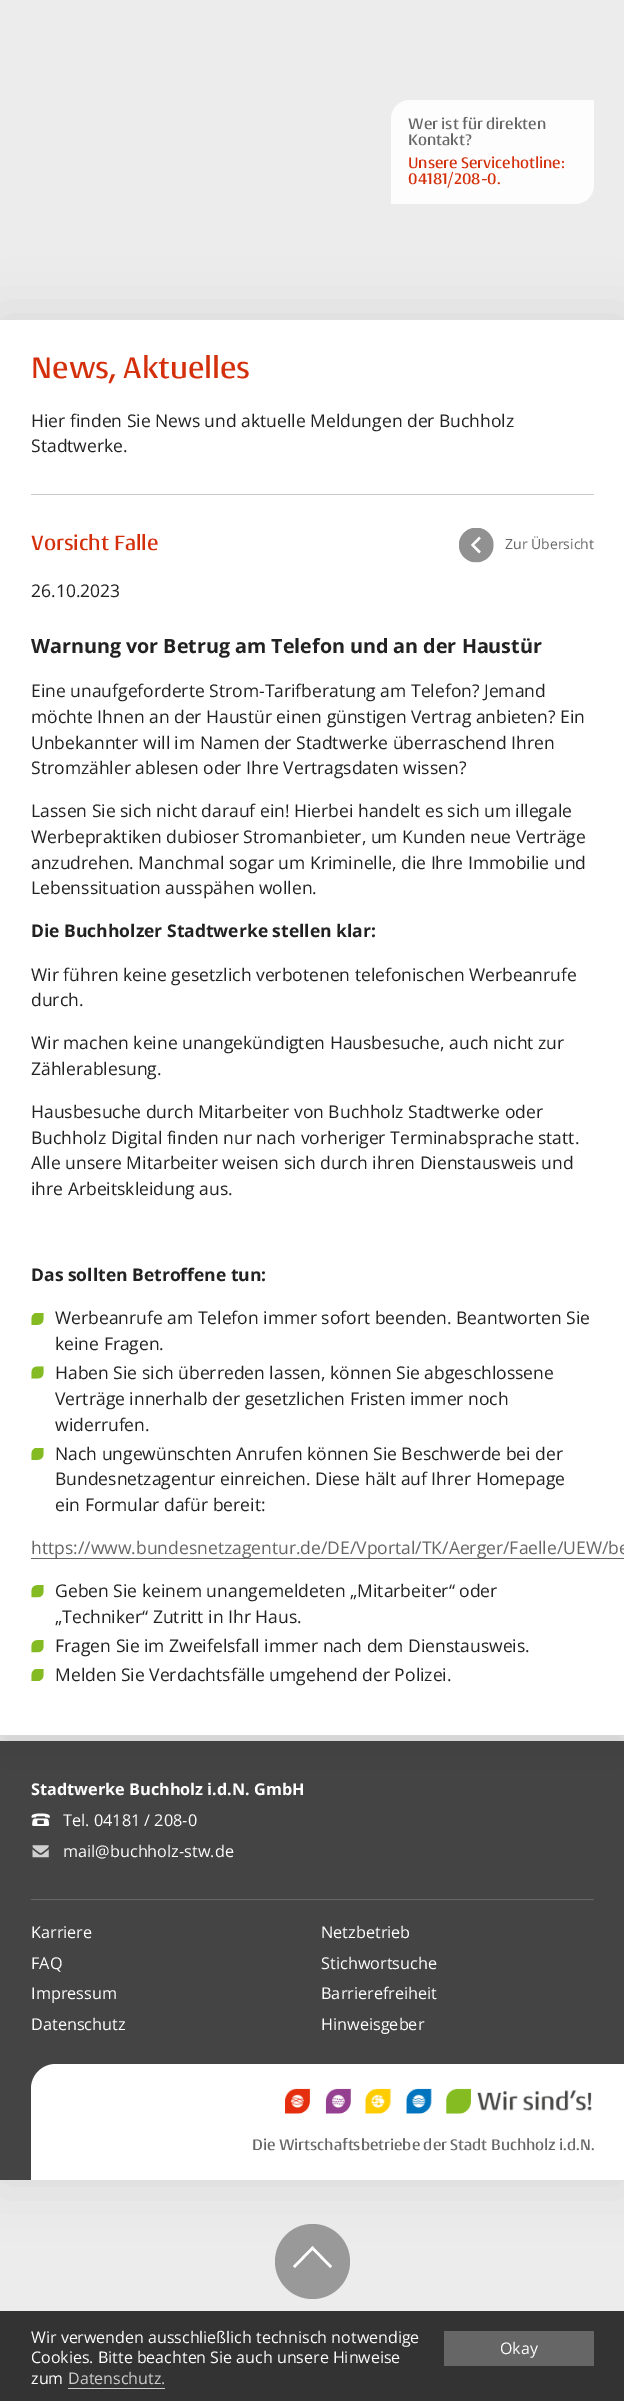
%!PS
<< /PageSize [624 2401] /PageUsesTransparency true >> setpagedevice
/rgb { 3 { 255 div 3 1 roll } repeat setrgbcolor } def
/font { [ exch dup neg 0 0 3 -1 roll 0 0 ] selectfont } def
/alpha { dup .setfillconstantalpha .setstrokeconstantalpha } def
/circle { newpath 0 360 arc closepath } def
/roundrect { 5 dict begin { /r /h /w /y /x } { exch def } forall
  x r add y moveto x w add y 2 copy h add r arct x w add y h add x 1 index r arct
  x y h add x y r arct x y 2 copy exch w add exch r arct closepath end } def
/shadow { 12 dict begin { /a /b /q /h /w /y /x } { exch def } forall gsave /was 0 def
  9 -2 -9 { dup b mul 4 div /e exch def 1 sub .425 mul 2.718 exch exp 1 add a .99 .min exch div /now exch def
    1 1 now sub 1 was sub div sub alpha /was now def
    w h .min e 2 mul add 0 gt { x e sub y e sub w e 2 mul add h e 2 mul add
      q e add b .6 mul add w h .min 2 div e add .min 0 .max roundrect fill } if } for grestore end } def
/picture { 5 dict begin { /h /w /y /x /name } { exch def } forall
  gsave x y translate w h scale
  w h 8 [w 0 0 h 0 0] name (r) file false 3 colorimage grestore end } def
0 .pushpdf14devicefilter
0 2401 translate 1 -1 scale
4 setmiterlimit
236 236 236 rgb
0 0 624 2401 rectfill
253 253 253 rgb
410 100 moveto 594 100 lineto 594 185 lineto 594 195.5 585.5 204 575 204 curveto 391 204 lineto 391 119 lineto 391 108.5 399.5 100 410 100 curveto closepath fill
0 0 0 rgb
0 1741 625 439 0 28 0.08 shadow
68 68 68 rgb
0 1741 624 439 rectfill
(img/6.rgb) 31 1813 19 13 picture
0 0 0 rgb
0 320 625 1415 0 28 0.08 shadow
255 255 255 rgb
0 320 624 1415 rectfill
200 201 201 rgb
31 494 563 1 rectfill
(img/1.rgb) 31 1313 13 12 picture
(img/2.rgb) 31 1366 13 13 picture
(img/1.rgb) 31 1448 13 12 picture
102 102 102 rgb
31 1558 593 1 rectfill
(img/3.rgb) 31 1585 13 13 picture
(img/3.rgb) 31 1640 13 13 picture
(img/4.rgb) 31 1669 13 12 picture
(img/5.rgb) 459 528 35 35 picture
(img/7.rgb) 32 1845 17 13 picture
31 1899 563 1 rectfill
255 255 255 rgb
56 2064 moveto 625 2064 lineto 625 2180 lineto 31 2180 lineto 31 2089 lineto 31 2075 42 2064 56 2064 curveto closepath fill
(img/8.rgb) 285 2088 25 26 picture
(img/9.rgb) 325 2088 26 26 picture
(img/10.rgb) 365 2088 26 26 picture
(img/11.rgb) 406 2088 26 26 picture
(img/12.rgb) 446 2088 146 26 picture
153 153 153 rgb
312.5 2261.5 37.5 circle fill
255 255 255 rgb
2.5 setlinewidth
331 2267 moveto 312.5 2248 lineto 294 2267 lineto stroke
[
  [0 2311 624 90 51 51 51]
  [68 2388 97 1 204 204 204]
  [444 2331 150 35 102 102 102]
] { aload pop rgb rectfill } forall
/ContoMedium-Medium 16.25 font
408 129 moveto (Wer ist für direkten) show
408 145 moveto (Kontakt?) show
212 47 11 rgb
408 168 moveto (Unsere Servicehotline:) show
408 184 moveto (04181/208-0.) show
/ContoMedium-Medium 31.5 font
31 378 moveto (News, Aktuelles) show
/OpenSans-Regular 17.5 font
34 34 34 rgb
31 427 moveto (Hier finden Sie News und aktuelle Meldungen der Buchholz) show
31 452 moveto (Stadtwerke.) show
/ContoMedium-Medium 22 font
212 47 11 rgb
31 550 moveto (Vorsicht Falle) show
/OpenSans-Regular 17.5 font
34 34 34 rgb
31 597 moveto (26.10.2023) show
/OpenSans-Bold 19.7 font
31 653 moveto (Warnung vor Betrug am Telefon und an der Haustür) show
/OpenSans-Regular 17.5 font
[
  [(Eine unaufgeforderte Strom-Tarifberatung am Telefon? Jemand) 31 697]
  [(möchte Ihnen an der Haustür einen günstigen Vertrag anbieten? Ein) 31 723]
  [(Unbekannter will im Namen der Stadtwerke überraschend Ihren) 31 749]
  [(Stromzähler ablesen oder Ihre Vertragsdaten wissen?) 31 774]
  [(Lassen Sie sich nicht darauf ein! Hierbei handelt es sich um illegale) 31 817]
  [(Werbepraktiken dubioser Stromanbieter, um Kunden neue Verträge) 31 843]
  [(anzudrehen. Manchmal sogar um Kriminelle, die Ihre Immobilie und) 31 869]
  [(Lebenssituation ausspähen wollen.) 31 894]
] { aload pop moveto show } forall
/OpenSans-Bold 17.5 font
31 937 moveto (Die Buchholzer Stadtwerke stellen klar:) show
/OpenSans-Regular 17.5 font
[
  [(Wir führen keine gesetzlich verbotenen telefonischen Werbeanrufe) 31 981]
  [(durch.) 31 1006]
  [(Wir machen keine unangekündigten Hausbesuche, auch nicht zur) 31 1049]
  [(Zählerablesung.) 31 1075]
  [(Hausbesuche durch Mitarbeiter von Buchholz Stadtwerke oder) 31 1118]
  [(Buchholz Digital finden nur nach vorheriger Terminabsprache statt.) 31 1144]
  [(Alle unsere Mitarbeiter weisen sich durch ihren Dienstausweis und) 31 1169]
  [(ihre Arbeitskleidung aus.) 31 1195]
] { aload pop moveto show } forall
/OpenSans-Bold 17.5 font
31 1281 moveto (Das sollten Betroffene tun:) show
/OpenSans-Regular 17.5 font
[
  [(Werbeanrufe am Telefon immer sofort beenden. Beantworten Sie) 55 1324]
  [(keine Fragen.) 55 1350]
  [(Haben Sie sich überreden lassen, können Sie abgeschlossene) 55 1379]
  [(Verträge innerhalb der gesetzlichen Fristen immer noch) 55 1405]
  [(widerrufen.) 55 1431]
  [(Nach ungewünschten Anrufen können Sie Beschwerde bei der) 55 1460]
  [(Bundesnetzagentur einreichen. Diese hält auf Ihrer Homepage) 55 1485]
  [(ein Formular dafür bereit:) 55 1511]
] { aload pop moveto show } forall
102 102 102 rgb
31 1554 moveto (https://www.bundesnetzagentur.de/DE/Vportal/TK/Aerger/Faelle/UEW/be) show
34 34 34 rgb
[
  [(Geben Sie keinem unangemeldeten „Mitarbeiter“ oder) 55 1597]
  [(„Techniker“ Zutritt in Ihr Haus.) 55 1623]
  [(Fragen Sie im Zweifelsfall immer nach dem Dienstausweis.) 55 1652]
  [(Melden Sie Verdachtsfälle umgehend der Polizei.) 55 1681]
] { aload pop moveto show } forall
/OpenSans-Regular 14 font
102 102 102 rgb
505 549 moveto (Zur Übersicht) show
/OpenSans-Bold 16.25 font
255 255 255 rgb
31 1795 moveto (Stadtwerke Buchholz i.d.N. GmbH) show
/OpenSans-Regular 16.25 font
[
  [(Tel. 04181 / 208-0) 63 1826]
  [(mail@buchholz-stw.de) 63 1857]
  [(Karriere) 31 1938]
  [(Netzbetrieb) 321 1938]
  [(FAQ) 31 1969]
  [(Stichwortsuche) 321 1969]
  [(Impressum) 31 1999]
  [(Barrierefreiheit) 321 1999]
  [(Datenschutz) 31 2030]
  [(Hinweisgeber) 321 2030]
] { aload pop moveto show } forall
/ContoMedium-Medium 16.25 font
102 102 102 rgb
252 2150 moveto (Die Wirtschaftsbetriebe der Stadt Buchholz i.d.N.) show
/OpenSans-Regular 16 font
255 255 255 rgb
[
  [(Wir verwenden ausschließlich technisch notwendige) 31 2343]
  [(Cookies. Bitte beachten Sie auch unsere Hinweise) 31 2363]
  [(zum) 31 2384]
] { aload pop moveto show } forall
204 204 204 rgb
68 2384 moveto (Datenschutz.) show
255 255 255 rgb
500 2354 moveto (Okay) show
.poppdf14devicefilter showpage
